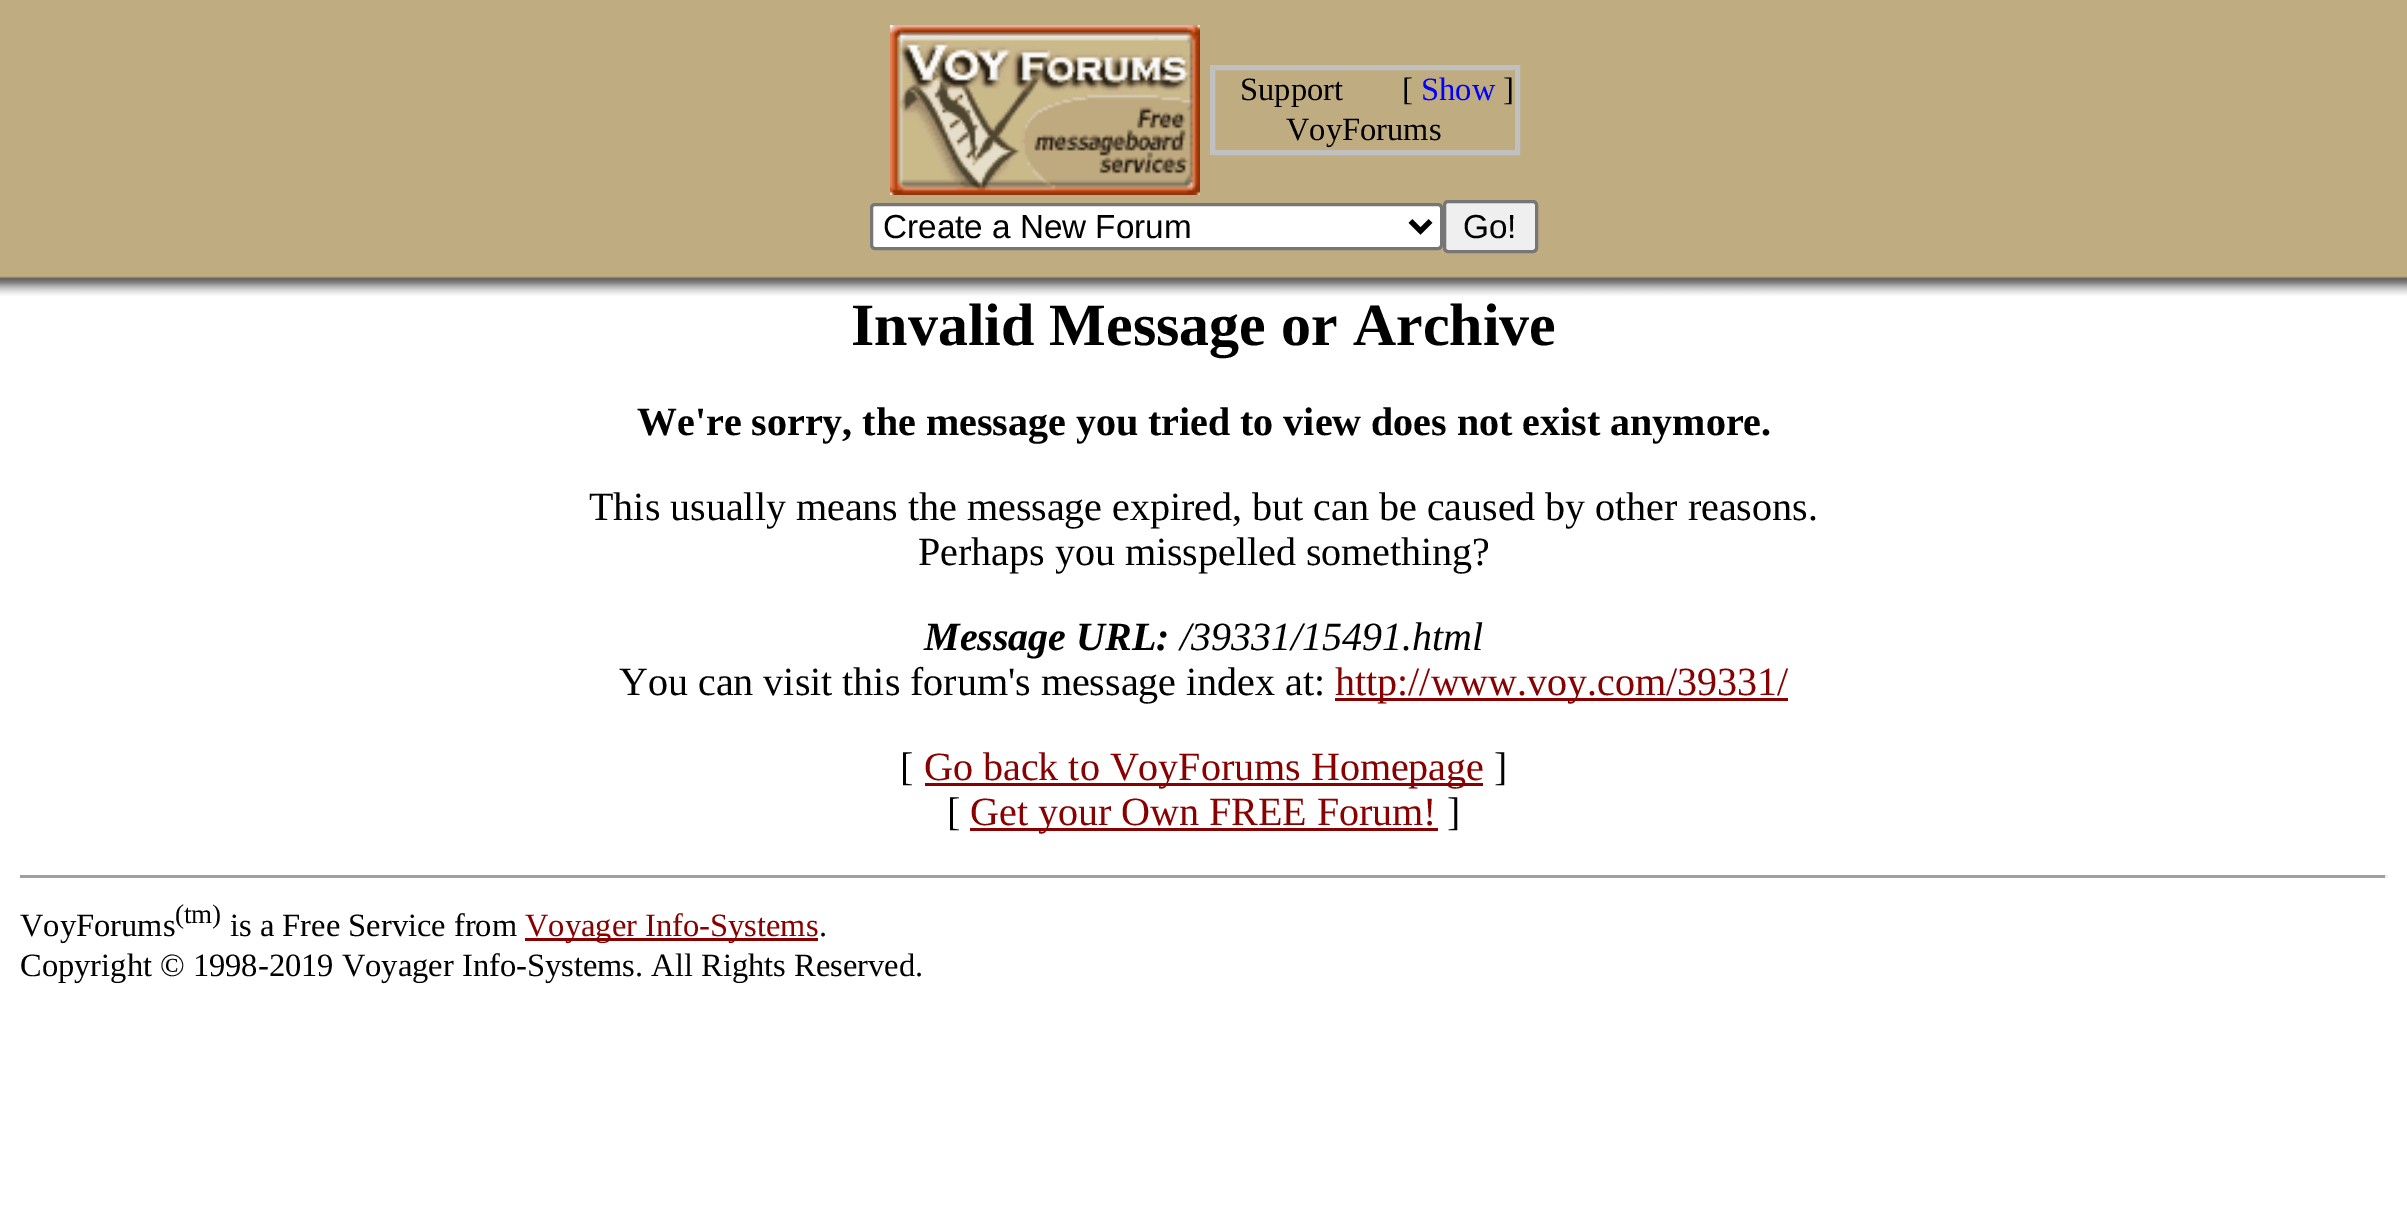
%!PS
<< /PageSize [2407 1208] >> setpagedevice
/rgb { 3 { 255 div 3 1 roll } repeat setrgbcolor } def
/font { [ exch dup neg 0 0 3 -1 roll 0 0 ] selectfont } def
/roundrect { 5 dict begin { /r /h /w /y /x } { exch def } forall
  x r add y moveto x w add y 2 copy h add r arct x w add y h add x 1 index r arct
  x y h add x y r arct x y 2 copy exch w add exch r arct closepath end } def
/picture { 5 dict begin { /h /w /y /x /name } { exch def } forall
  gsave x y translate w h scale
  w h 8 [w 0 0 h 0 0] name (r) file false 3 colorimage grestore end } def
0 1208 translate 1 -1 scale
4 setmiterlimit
255 255 255 rgb
0 0 2407 1208 rectfill
(img/1.rgb) 0 0 2407 296 picture
(img/2.rgb) 890 25 310 170 picture
192 192 192 rgb
5 setlinewidth
1212.5 67.5 305 85 rectstroke
255 255 255 rgb
871.5 204.5 570 44 3.5 roundrect gsave fill grestore
118 118 118 rgb
3 setlinewidth
stroke
0 0 0 rgb
5 setlinewidth
1410.5 221 moveto 1420.5 231 lineto 1430.5 221 lineto stroke
239 239 239 rgb
1444.5 201.5 92 50 3.5 roundrect gsave fill grestore
118 118 118 rgb
3 setlinewidth
stroke
[
  [1335 698 453 3 136 0 0]
  [925 783 558 3 136 0 0]
  [970 828 468 3 136 0 0]
  [20 875 2368 3 159 159 159]
  [2385 875 3 3 238 238 238]
  [525 938 293 3 136 0 0]
] { aload pop rgb rectfill } forall
/LiberationSerif-Regular 32.5 font
0 0 0 rgb
1240 100 moveto (Support) show
1402 100 moveto ([) show
0 0 255 rgb
1421 100 moveto (Show) show
0 0 0 rgb
1503 100 moveto (]) show
1286 140 moveto (VoyForums) show
/LiberationSans-Regular 33.25 font
883 238 moveto (Create a New Forum) show
1463 238 moveto (Go!) show
/LiberationSerif-Bold 60 font
851 345 moveto (Invalid Message or Archive) show
/LiberationSerif-Bold 40 font
637 435 moveto (We're sorry, the message you tried to view does not exist anymore.) show
/LiberationSerif-Regular 40 font
589 520 moveto (This usually means the message expired, but can be caused by other reasons.) show
918 565 moveto (Perhaps you misspelled something?) show
/LiberationSerif-BoldItalic 40 font
924 650 moveto (Message URL:) show
/LiberationSerif-Italic 40 font
1180 650 moveto (/39331/15491.html) show
/LiberationSerif-Regular 40 font
619 695 moveto (You can visit this forum's message index at:) show
136 0 0 rgb
1335 695 moveto (http://www.voy.com/39331/) show
0 0 0 rgb
900 780 moveto ([) show
136 0 0 rgb
924 780 moveto (Go back to VoyForums Homepage) show
0 0 0 rgb
1494 780 moveto (]) show
947 825 moveto ([) show
136 0 0 rgb
970 825 moveto (Get your Own FREE Forum!) show
0 0 0 rgb
1447 825 moveto (]) show
/LiberationSerif-Regular 32.5 font
20 936 moveto (VoyForums) show
/LiberationSerif-Regular 27 font
175 923 moveto (\(tm\)) show
/LiberationSerif-Regular 32.5 font
230 936 moveto (is a Free Service from) show
136 0 0 rgb
525 936 moveto (Voyager Info-Systems) show
0 0 0 rgb
819 936 moveto (.) show
20 976 moveto (Copyright © 1998-2019 Voyager Info-Systems. All Rights Reserved.) show
showpage
